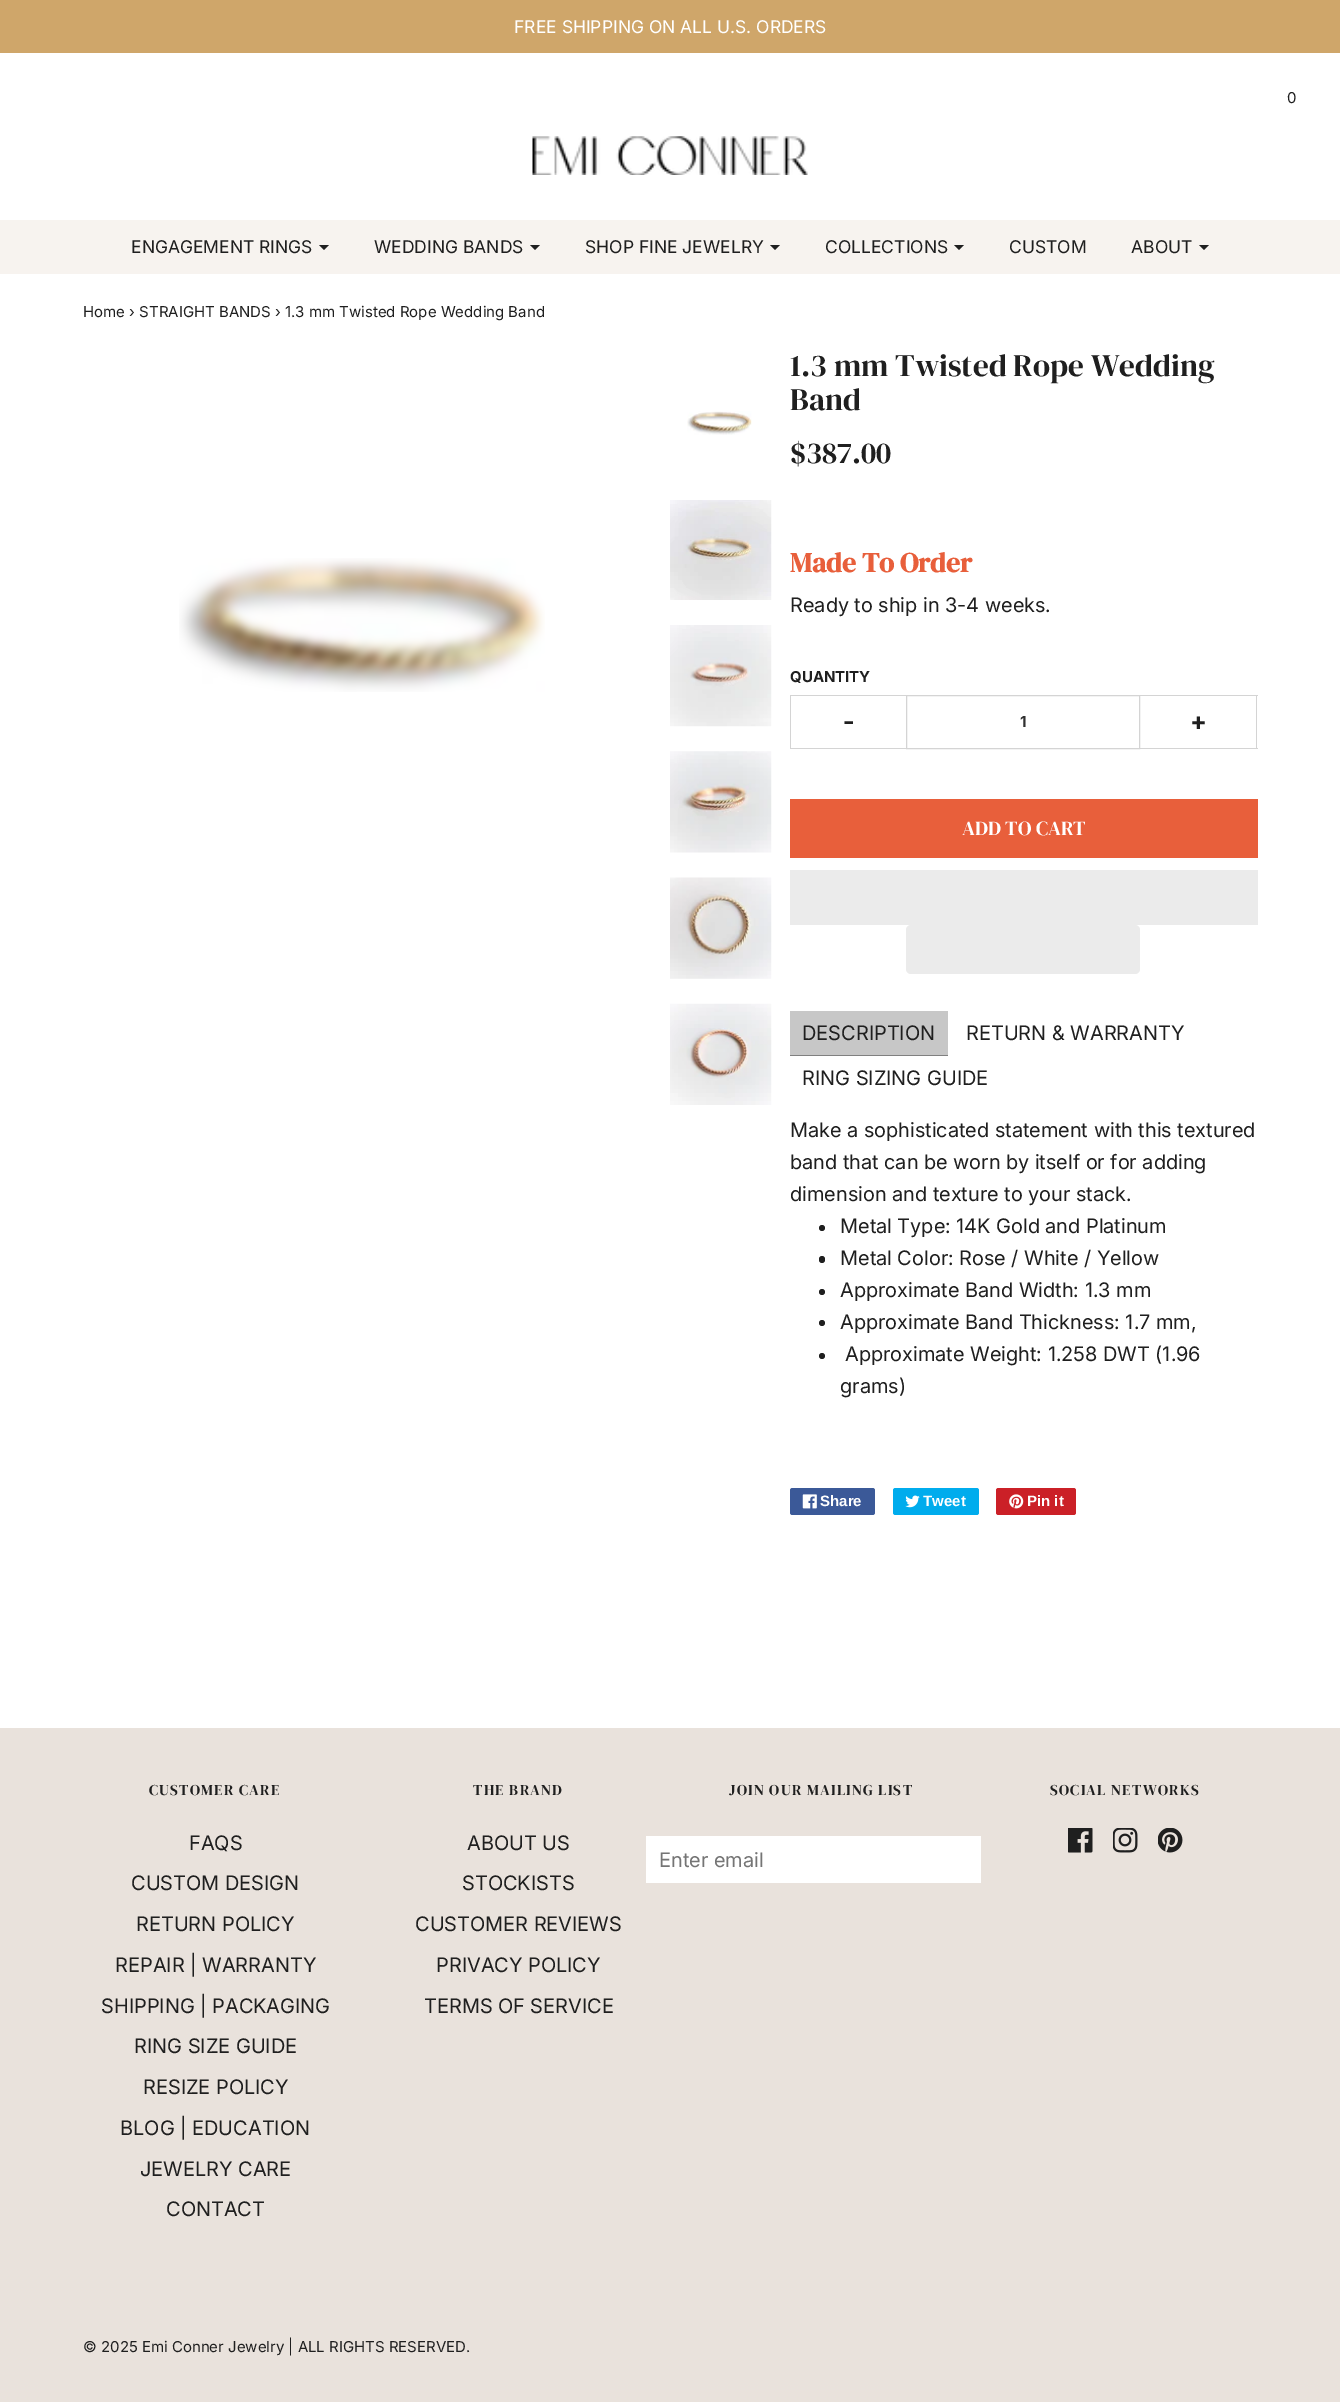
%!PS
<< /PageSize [1340 2402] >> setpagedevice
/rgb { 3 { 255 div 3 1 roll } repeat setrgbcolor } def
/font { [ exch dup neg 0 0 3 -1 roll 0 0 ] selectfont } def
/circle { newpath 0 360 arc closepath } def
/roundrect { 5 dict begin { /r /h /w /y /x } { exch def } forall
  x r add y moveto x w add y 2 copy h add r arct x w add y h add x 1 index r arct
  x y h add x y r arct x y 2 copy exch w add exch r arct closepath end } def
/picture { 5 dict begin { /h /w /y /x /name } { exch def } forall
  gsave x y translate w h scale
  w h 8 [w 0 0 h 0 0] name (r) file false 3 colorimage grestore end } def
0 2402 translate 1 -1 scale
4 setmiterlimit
255 255 255 rgb
0 0 1340 2402 rectfill
207 166 106 rgb
0 0 1340 53 rectfill
(img/1.rgb) 532 136 276 39 picture
247 243 239 rgb
0 220 1340 54 rectfill
31 31 31 rgb
319 245 moveto 329 245 lineto 324 250 lineto closepath fill
530 245 moveto 540 245 lineto 535 250 lineto closepath fill
770 245 moveto 780 245 lineto 775 250 lineto closepath fill
954 245 moveto 964 245 lineto 959 250 lineto closepath fill
1199 245 moveto 1209 245 lineto 1204 250 lineto closepath fill
(img/2.rgb) 179 558 366 134 picture
(img/3.rgb) 687 411 65 24 picture
(img/4.rgb) 670 500 102 100 picture
(img/5.rgb) 670 625 102 102 picture
(img/6.rgb) 670 751 102 102 picture
(img/7.rgb) 670 877 102 102 picture
(img/8.rgb) 670 1003 102 102 picture
[
  [790 695 116 1 212 212 212]
  [790 748 116 1 212 212 212]
  [790 695 1 54 212 212 212]
] { aload pop rgb rectfill } forall
906.5 695.5 233 53 rectstroke
[
  [1140 695 118 1 212 212 212]
  [1256 695 1 54 212 212 212]
  [1140 748 118 1 212 212 212]
  [790 799 468 59 232 95 59]
  [790 870 468 55 235 235 235]
] { aload pop rgb rectfill } forall
906 925 234 49 5 roundrect fill
199 199 199 rgb
790 1011 158 44 rectfill
128 128 128 rgb
790 1055 158 1 rectfill
31 31 31 rgb
822 1228 3 circle fill
819 1256 6 7 3 roundrect fill
822 1292 3 circle fill
822 1323 3 circle fill
822 1356 3 circle fill
59 89 152 rgb
790 1488 85 27 2.5 roundrect fill
(img/9.rgb) 802 1494 15 15 picture
0 172 237 rgb
893 1488 86 27 2.5 roundrect fill
(img/10.rgb) 905 1495 15 13 picture
203 32 39 rgb
996 1488 80 27 2.5 roundrect fill
(img/11.rgb) 1009 1494 15 15 picture
233 226 220 rgb
0 1728 1340 674 rectfill
255 255 255 rgb
646 1836 335 47 rectfill
(img/12.rgb) 1068 1828 25 25 picture
(img/13.rgb) 1113 1828 25 25 picture
(img/14.rgb) 1158 1828 25 25 picture
/Inter-Regular 17.5 font
514 33 moveto (FREE SHIPPING ON ALL U.S. ORDERS) show
/Inter-Regular 15 font
31 31 31 rgb
1287 103 moveto (0) show
/Inter-Regular 17.5 font
[
  [(ENGAGEMENT RINGS) 131 253]
  [(WEDDING BANDS) 374 253]
  [(SHOP FINE JEWELRY) 585 253]
  [(COLLECTIONS) 825 253]
  [(CUSTOM) 1009 253]
  [(ABOUT) 1131 253]
] { aload pop moveto show } forall
/Inter-Regular 15 font
83 317 moveto (Home › STRAIGHT BANDS › 1.3 mm Twisted Rope Wedding Band) show
/DMSerifDisplay-Regular 31.25 font
790 376 moveto (1.3 mm Twisted Rope Wedding) show
790 410 moveto (Band) show
/DMSerifDisplay-Regular 30 font
790 463 moveto ($387.00) show
/DMSerifDisplay-Bold 27.5 font
232 95 59 rgb
790 572 moveto (Made To Order) show
/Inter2-Regular 20 font
31 31 31 rgb
790 612 moveto (Ready to ship in 3-4 weeks.) show
/Inter2-Bold 15 font
790 682 moveto (QUANTITY) show
/Inter-Bold 25 font
843 730 moveto (-) show
/Inter2-Bold 15 font
49 49 49 rgb
1020 727 moveto (1) show
/Inter-Bold 25 font
31 31 31 rgb
1190 730 moveto (+) show
/DMSerifDisplay-Regular 20 font
255 255 255 rgb
962 835 moveto (ADD TO CART) show
/Inter2-Regular 20 font
31 31 31 rgb
[
  [(DESCRIPTION) 802 1040]
  [(RETURN & WARRANTY) 966 1040]
  [(RING SIZING GUIDE) 802 1085]
  [(Make a sophisticated statement with this textured) 790 1137]
  [(band that can be worn by itself or for adding) 790 1169]
  [(dimension and texture to your stack.) 790 1201]
  [(Metal Type: 14K Gold and Platinum) 840 1233]
  [(Metal Color: Rose / White / Yellow) 840 1265]
  [(Approximate Band Width: 1.3 mm) 840 1297]
  [(Approximate Band Thickness: 1.7 mm,) 840 1329]
  [(Approximate Weight: 1.258 DWT \(1.96) 845 1361]
  [(grams\)) 840 1393]
] { aload pop moveto show } forall
/LiberationSans-Bold 15 font
255 255 255 rgb
[
  [(Share) 820 1506]
  [(Tweet) 923 1506]
  [(Pin it) 1027 1506]
] { aload pop moveto show } forall
/DMSerifDisplay-Regular 15 font
31 31 31 rgb
149 1795 moveto 1.25 0 (CUSTOMER CARE) ashow
/Inter2-Regular 20 font
[
  [(FAQS) 189 1850]
  [(CUSTOM DESIGN) 131 1890]
  [(RETURN POLICY) 136 1931]
  [(REPAIR | WARRANTY) 115 1972]
  [(SHIPPING | PACKAGING) 101 2013]
  [(RING SIZE GUIDE) 134 2053]
  [(RESIZE POLICY) 143 2094]
  [(BLOG | EDUCATION) 120 2135]
  [(JEWELRY CARE) 140 2176]
  [(CONTACT) 166 2216]
] { aload pop moveto show } forall
/DMSerifDisplay-Regular 15 font
473 1795 moveto 1.25 0 (THE BRAND) ashow
/Inter2-Regular 20 font
[
  [(ABOUT US) 467 1850]
  [(STOCKISTS) 462 1890]
  [(CUSTOMER REVIEWS) 415 1931]
  [(PRIVACY POLICY) 436 1972]
  [(TERMS OF SERVICE) 424 2013]
] { aload pop moveto show } forall
/DMSerifDisplay-Regular 15 font
729 1795 moveto 1.25 0 (JOIN OUR MAILING LIST) ashow
/Inter2-Regular 20 font
117 117 117 rgb
659 1867 moveto (Enter email) show
/DMSerifDisplay-Regular 15 font
31 31 31 rgb
1050 1795 moveto 1.25 0 (SOCIAL NETWORKS) ashow
/Inter-Regular 15 font
83 2352 moveto (© 2025 Emi Conner Jewelry | ALL RIGHTS RESERVED.) show
showpage
